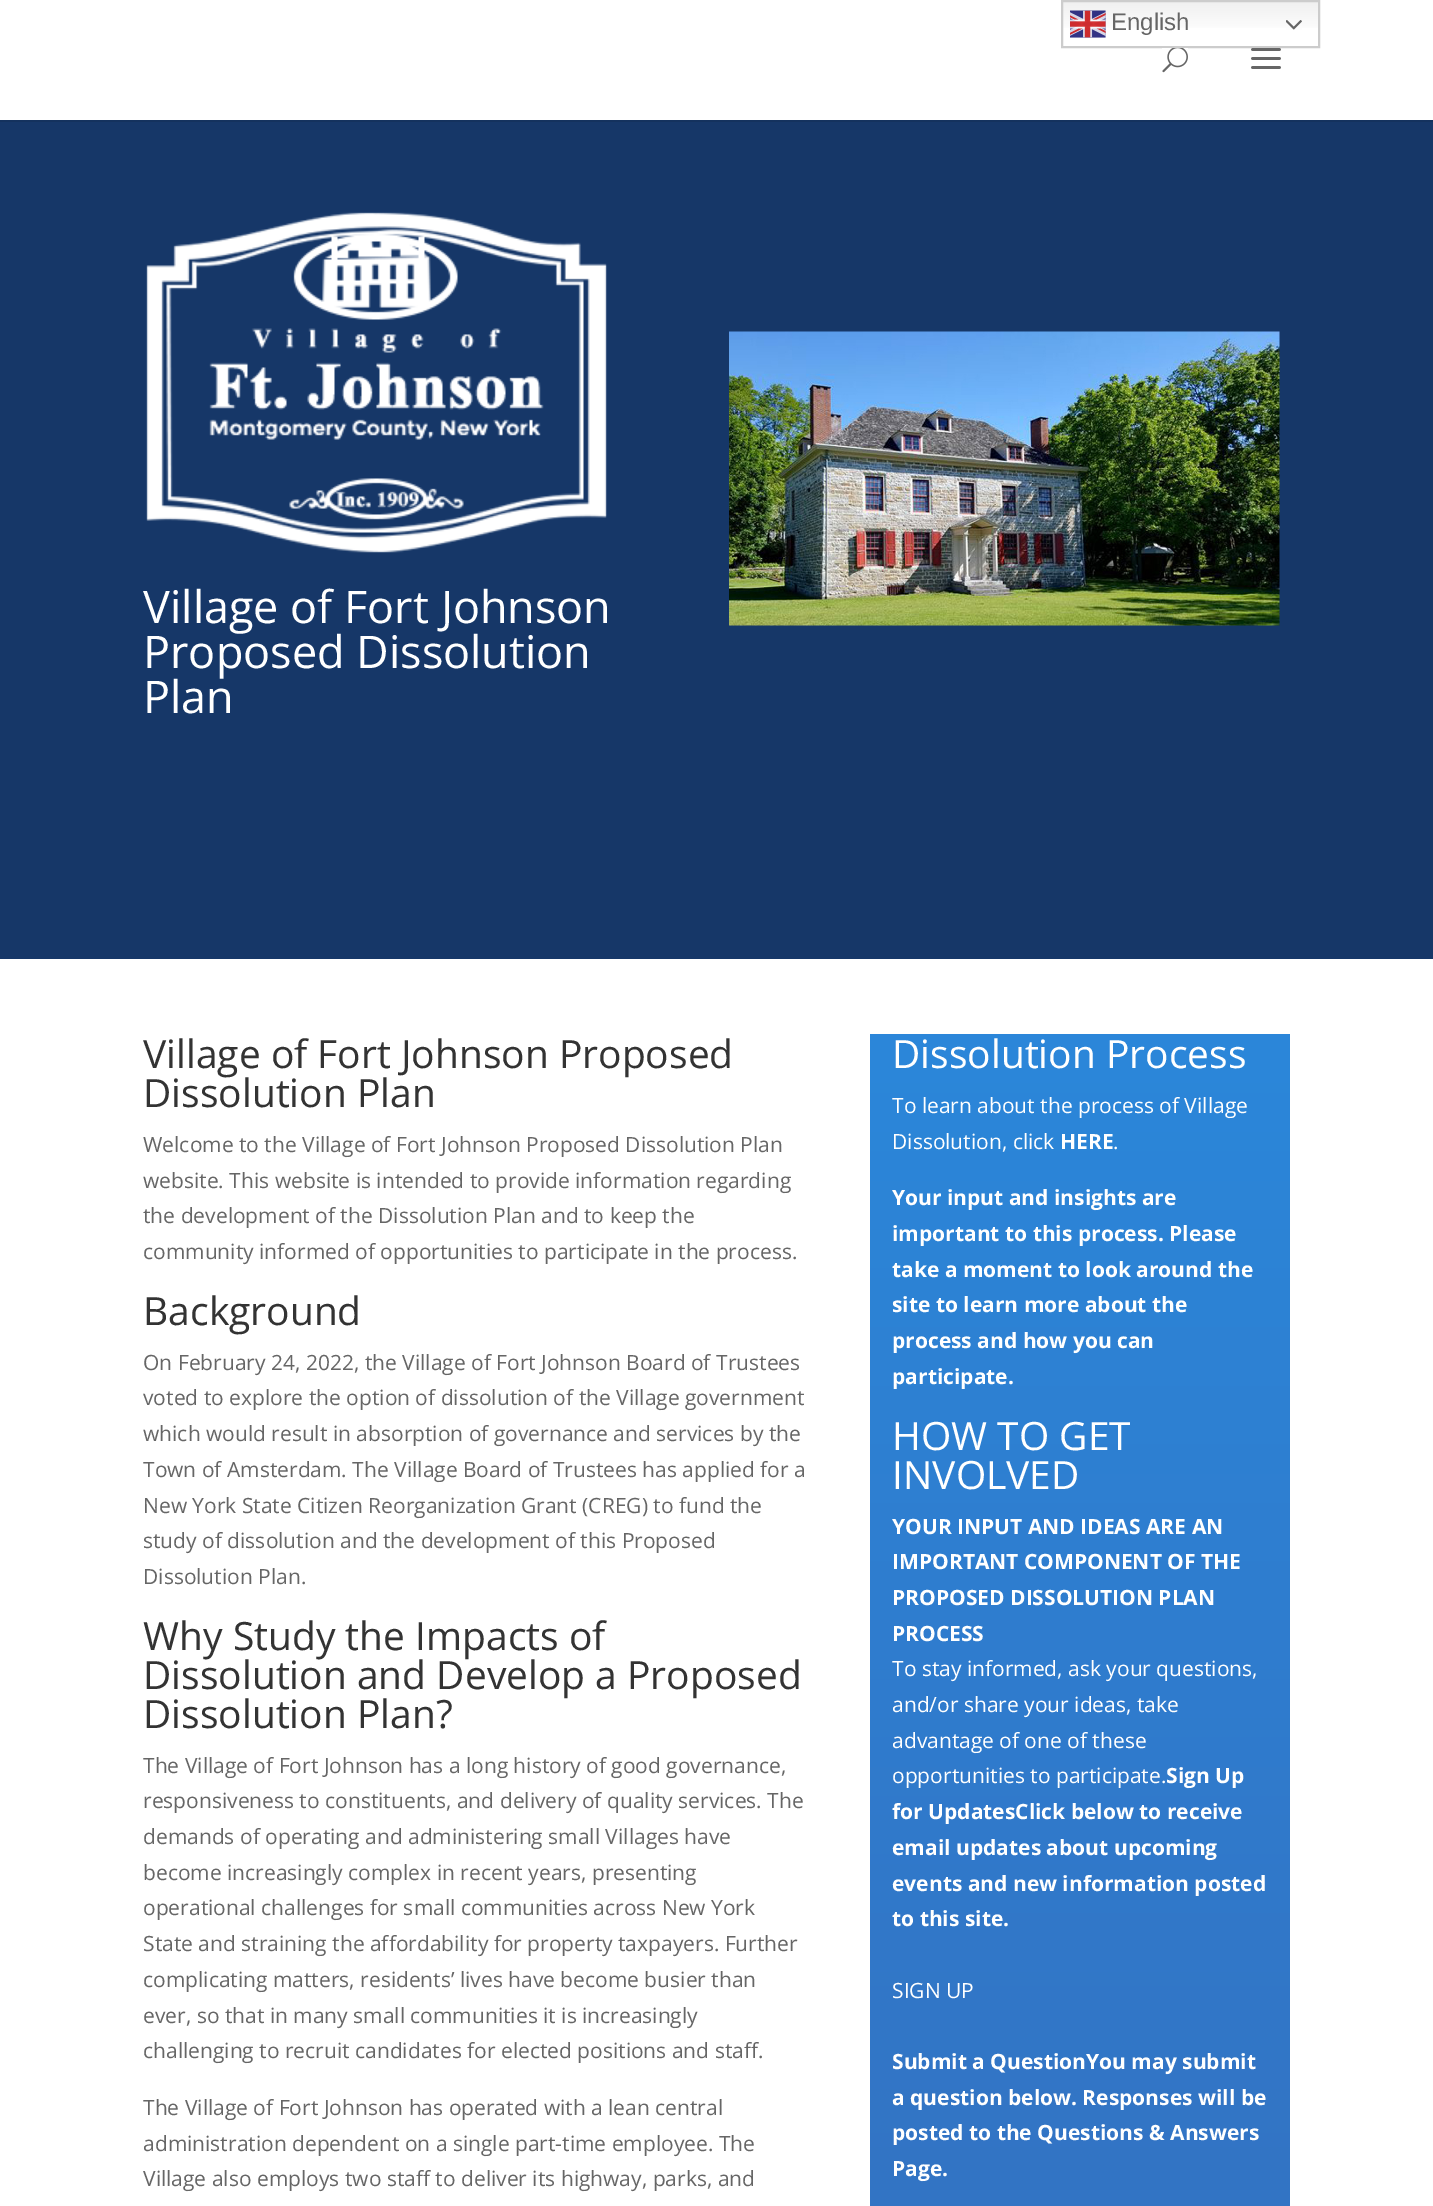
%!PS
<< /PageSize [1433 2206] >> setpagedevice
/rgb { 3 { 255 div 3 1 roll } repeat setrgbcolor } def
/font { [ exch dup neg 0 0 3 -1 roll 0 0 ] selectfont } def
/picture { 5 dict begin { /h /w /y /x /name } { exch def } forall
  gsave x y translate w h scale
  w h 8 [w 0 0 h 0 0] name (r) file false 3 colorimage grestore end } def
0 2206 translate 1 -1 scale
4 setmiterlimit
255 255 255 rgb
0 0 1433 2206 rectfill
gsave 1063 2 moveto 1318 2 lineto 1318 28 lineto 1063 28 lineto closepath clip newpath
<< /ShadingType 2 /ColorSpace /DeviceRGB /Coords [1190 0 1190 48] /Extend [true true] /Function << /FunctionType 3 /Domain [0 1] /Functions [<< /FunctionType 2 /Domain [0 1] /C0 [0.937 0.937 0.937] /C1 [1 1 1] /N 1 >> << /FunctionType 2 /Domain [0 1] /C0 [1 1 1] /C1 [1 1 1] /N 1 >>] /Bounds [0.7] /Encode [0 1 0 1] >> >> shfill grestore
204 204 204 rgb
2 setlinewidth
1062 1 257 46 rectstroke
(img/1.rgb) 1070 10 36 28 picture
(img/2.rgb) 1286 20 16 10 picture
20 50 94 rgb
0 120 1433 2 rectfill
(img/3.rgb) 1162 48 26 25 picture
(img/4.rgb) 1251 48 30 21 picture
22 55 104 rgb
0 122 1433 837 rectfill
(img/5.rgb) 729 331 551 295 picture
(img/6.rgb) 146 212 461 341 picture
gsave 870 1034 moveto 1290 1034 lineto 1290 2206 lineto 870 2206 lineto closepath clip newpath
<< /ShadingType 2 /ColorSpace /DeviceRGB /Coords [1080 1034 1080 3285] /Extend [true true] /Function << /FunctionType 2 /Domain [0 1] /C0 [0.169 0.529 0.855] /C1 [0.231 0.384 0.686] /N 1 >> >> shfill grestore
/LiberationSans-Regular 24 font
102 102 102 rgb
1111 30 moveto (English) show
/OpenSans-Regular 45 font
255 255 255 rgb
[
  [(Village of Fort Johnson) 143 623]
  [(Proposed Dissolution) 143 668]
  [(Plan) 143 713]
] { aload pop moveto show } forall
/OpenSans-Regular 39 font
51 51 51 rgb
143 1068 moveto (Village of Fort Johnson Proposed) show
143 1107 moveto (Dissolution Plan) show
/OpenSans-Regular 21 font
102 102 102 rgb
[
  [(Welcome to the Village of Fort Johnson Proposed Dissolution Plan) 143 1152]
  [(website. This website is intended to provide information regarding) 143 1188]
  [(the development of the Dissolution Plan and to keep the) 143 1223]
  [(community informed of opportunities to participate in the process.) 143 1259]
] { aload pop moveto show } forall
/OpenSans-Regular 39 font
51 51 51 rgb
143 1325 moveto (Background) show
/OpenSans-Regular 21 font
102 102 102 rgb
[
  [(On February 24, 2022, the Village of Fort Johnson Board of Trustees) 143 1370]
  [(voted to explore the option of dissolution of the Village government) 143 1405]
  [(which would result in absorption of governance and services by the) 143 1441]
  [(Town of Amsterdam. The Village Board of Trustees has applied for a) 143 1477]
  [(New York State Citizen Reorganization Grant \(CREG\) to fund the) 143 1513]
  [(study of dissolution and the development of this Proposed) 143 1548]
  [(Dissolution Plan.) 143 1584]
] { aload pop moveto show } forall
/OpenSans-Regular 39 font
51 51 51 rgb
[
  [(Why Study the Impacts of) 143 1650]
  [(Dissolution and Develop a Proposed) 143 1689]
  [(Dissolution Plan?) 143 1728]
] { aload pop moveto show } forall
/OpenSans-Regular 21 font
102 102 102 rgb
[
  [(The Village of Fort Johnson has a long history of good governance,) 143 1773]
  [(responsiveness to constituents, and delivery of quality services. The) 143 1808]
  [(demands of operating and administering small Villages have) 143 1844]
  [(become increasingly complex in recent years, presenting) 143 1880]
  [(operational challenges for small communities across New York) 143 1915]
  [(State and straining the affordability for property taxpayers. Further) 143 1951]
  [(complicating matters, residents’ lives have become busier than) 143 1987]
  [(ever, so that in many small communities it is increasingly) 143 2023]
  [(challenging to recruit candidates for elected positions and staff.) 143 2058]
  [(The Village of Fort Johnson has operated with a lean central) 143 2115]
  [(administration dependent on a single part-time employee. The) 143 2151]
  [(Village also employs two staff to deliver its highway, parks, and) 143 2186]
] { aload pop moveto show } forall
/OpenSans-Regular 39 font
255 255 255 rgb
892 1068 moveto (Dissolution Process) show
/OpenSans-Regular 21 font
892 1113 moveto (To learn about the process of Village) show
892 1149 moveto (Dissolution, click) show
/OpenSans-Bold 21 font
1060 1149 moveto (HERE) show
/OpenSans-Regular 21 font
1113 1149 moveto (.) show
/OpenSans-Bold 21 font
[
  [(Your input and insights are) 892 1205]
  [(important to this process. Please) 892 1241]
  [(take a moment to look around the) 892 1277]
  [(site to learn more about the) 892 1312]
  [(process and how you can) 892 1348]
  [(participate.) 892 1384]
] { aload pop moveto show } forall
/OpenSans-Regular 39 font
892 1450 moveto (HOW TO GET) show
892 1489 moveto (INVOLVED) show
/OpenSans-Bold 21 font
[
  [(YOUR INPUT AND IDEAS ARE AN) 892 1534]
  [(IMPORTANT COMPONENT OF THE) 892 1569]
  [(PROPOSED DISSOLUTION PLAN) 892 1605]
  [(PROCESS) 892 1641]
] { aload pop moveto show } forall
/OpenSans-Regular 21 font
[
  [(To stay informed, ask your questions,) 892 1676]
  [(and/or share your ideas, take) 892 1712]
  [(advantage of one of these) 892 1748]
  [(opportunities to participate.) 892 1783]
] { aload pop moveto show } forall
/OpenSans-Bold 21 font
[
  [(Sign Up) 1166 1783]
  [(for UpdatesClick below to receive) 892 1819]
  [(email updates about upcoming) 892 1855]
  [(events and new information posted) 892 1891]
  [(to this site.) 892 1926]
] { aload pop moveto show } forall
/OpenSans-Regular 21 font
892 1998 moveto (SIGN UP) show
/OpenSans-Bold 21 font
[
  [(Submit a QuestionYou may submit) 892 2069]
  [(a question below. Responses will be) 892 2105]
  [(posted to the Questions & Answers) 892 2140]
  [(Page.) 892 2176]
] { aload pop moveto show } forall
showpage
